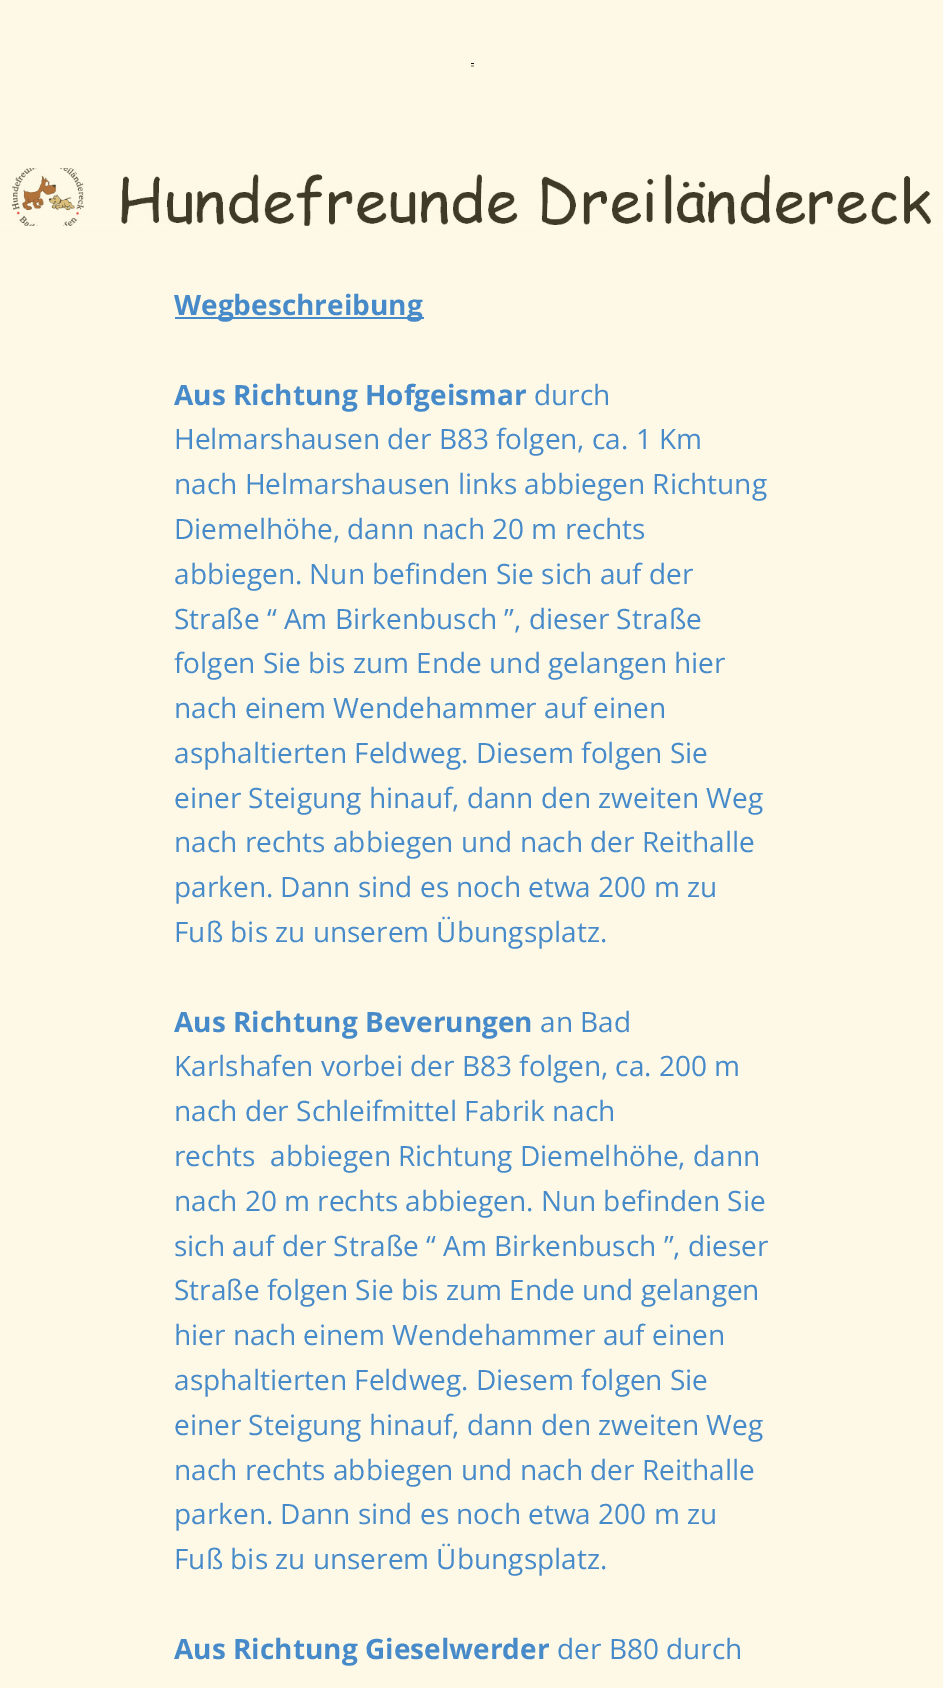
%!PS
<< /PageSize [943 1688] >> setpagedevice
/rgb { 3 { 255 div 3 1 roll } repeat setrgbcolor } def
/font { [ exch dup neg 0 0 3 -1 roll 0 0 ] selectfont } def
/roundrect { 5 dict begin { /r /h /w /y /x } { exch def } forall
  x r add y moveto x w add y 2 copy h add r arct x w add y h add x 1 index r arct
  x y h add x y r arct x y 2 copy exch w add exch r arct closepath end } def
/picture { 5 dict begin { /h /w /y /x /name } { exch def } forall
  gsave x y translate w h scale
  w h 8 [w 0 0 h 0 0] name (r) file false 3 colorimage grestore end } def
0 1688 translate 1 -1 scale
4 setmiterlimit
255 255 255 rgb
0 0 943 1688 rectfill
254 249 230 rgb
0 0 943 168 rectfill
17 17 17 rgb
471 63 3 1 0.5 roundrect fill
175 172 159 rgb
471 65 3 2 rectfill
(img/1.rgb) 0 168 943 58 picture
254 249 230 rgb
0 226 943 1462 rectfill
71 138 201 rgb
175 317 249 2 rectfill
/OpenSans-Bold 28 font
174 315 moveto (Wegbeschreibung) show
174 405 moveto (Aus Richtung Hofgeismar) show
/OpenSans-Regular 28 font
[
  [(durch) 534 405]
  [(Helmarshausen der B83 folgen, ca. 1 Km) 174 449]
  [(nach Helmarshausen links abbiegen Richtung) 174 494]
  [(Diemelhöhe, dann nach 20 m rechts) 174 539]
  [(abbiegen. Nun befinden Sie sich auf der) 174 584]
  [(Straße “ Am Birkenbusch ”, dieser Straße) 174 629]
  [(folgen Sie bis zum Ende und gelangen hier) 174 673]
  [(nach einem Wendehammer auf einen) 174 718]
  [(asphaltierten Feldweg. Diesem folgen Sie) 174 763]
  [(einer Steigung hinauf, dann den zweiten Weg) 174 808]
  [(nach rechts abbiegen und nach der Reithalle) 174 852]
  [(parken. Dann sind es noch etwa 200 m zu) 174 897]
  [(Fuß bis zu unserem Übungsplatz.) 174 942]
] { aload pop moveto show } forall
/OpenSans-Bold 28 font
174 1032 moveto (Aus Richtung Beverungen) show
/OpenSans-Regular 28 font
[
  [(an Bad) 540 1032]
  [(Karlshafen vorbei der B83 folgen, ca. 200 m) 174 1076]
  [(nach der Schleifmittel Fabrik nach) 174 1121]
  [(rechts) 174 1166]
  [(abbiegen Richtung Diemelhöhe, dann) 270 1166]
  [(nach 20 m rechts abbiegen. Nun befinden Sie) 174 1211]
  [(sich auf der Straße “ Am Birkenbusch ”, dieser) 174 1256]
  [(Straße folgen Sie bis zum Ende und gelangen) 174 1300]
  [(hier nach einem Wendehammer auf einen) 174 1345]
  [(asphaltierten Feldweg. Diesem folgen Sie) 174 1390]
  [(einer Steigung hinauf, dann den zweiten Weg) 174 1435]
  [(nach rechts abbiegen und nach der Reithalle) 174 1480]
  [(parken. Dann sind es noch etwa 200 m zu) 174 1524]
  [(Fuß bis zu unserem Übungsplatz.) 174 1569]
] { aload pop moveto show } forall
/OpenSans-Bold 28 font
174 1659 moveto (Aus Richtung Gieselwerder) show
/OpenSans-Regular 28 font
557 1659 moveto (der B80 durch) show
showpage
